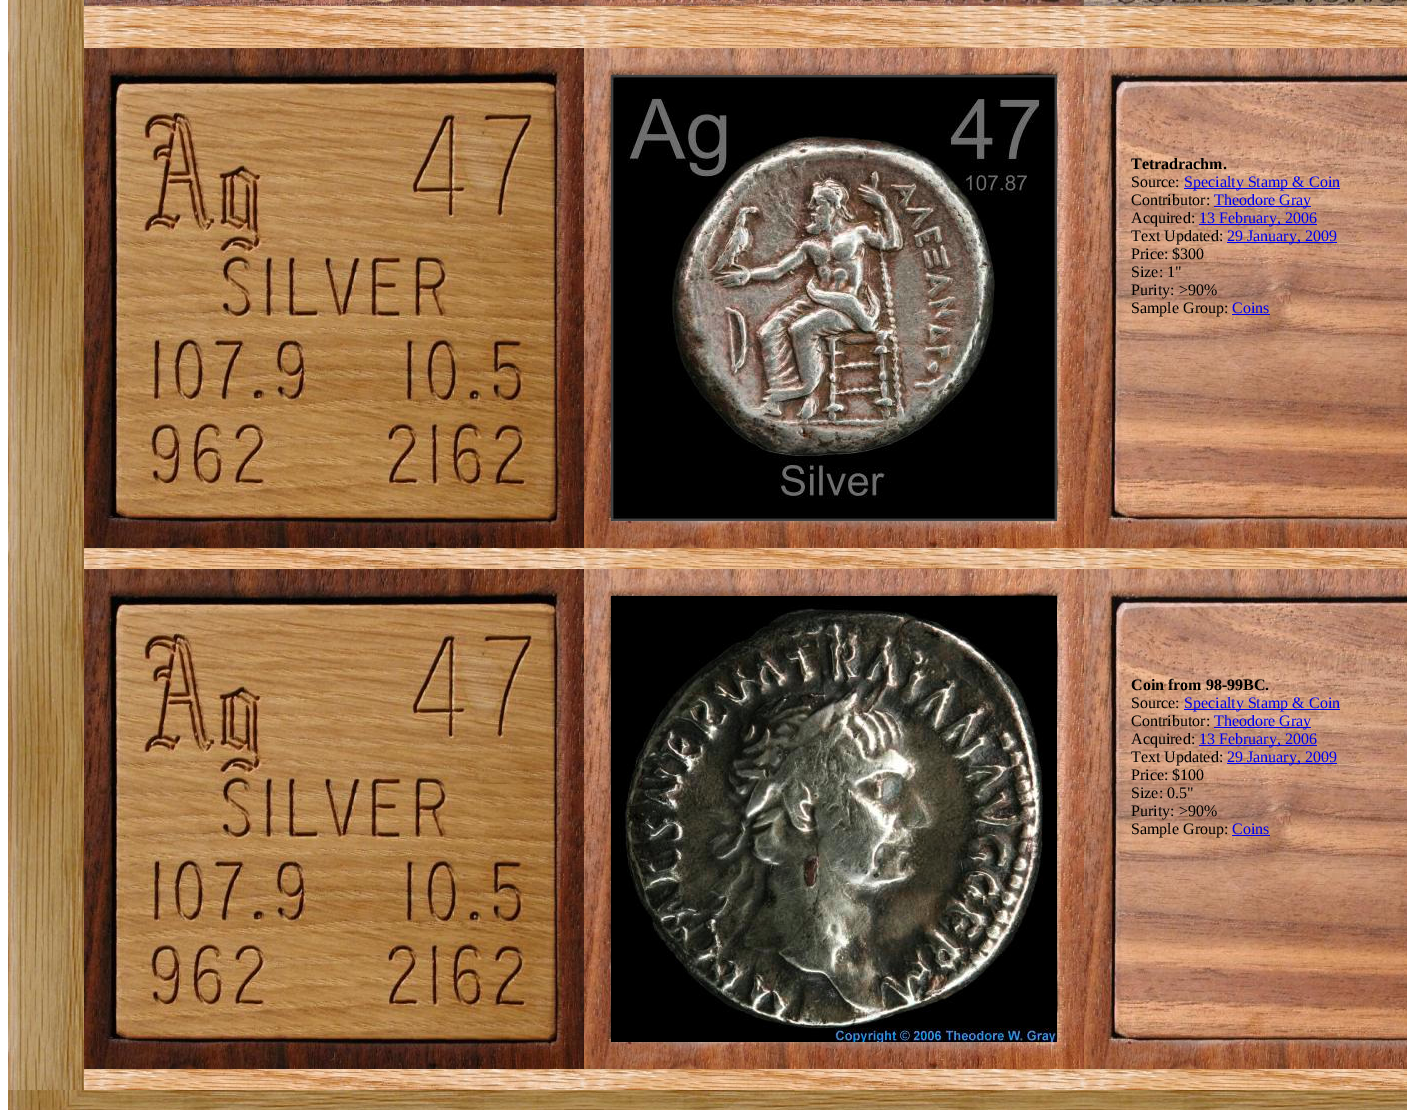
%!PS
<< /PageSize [1407 1110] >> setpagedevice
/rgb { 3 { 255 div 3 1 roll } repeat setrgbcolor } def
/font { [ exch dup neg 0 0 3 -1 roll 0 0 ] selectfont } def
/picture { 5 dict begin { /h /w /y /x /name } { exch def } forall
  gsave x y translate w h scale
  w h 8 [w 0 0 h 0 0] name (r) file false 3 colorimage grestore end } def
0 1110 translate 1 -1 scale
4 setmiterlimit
255 255 255 rgb
0 0 1407 1110 rectfill
(img/1.rgb) 8 0 76 1090 picture
(img/2.rgb) 84 0 500 6 picture
(img/3.rgb) 584 0 500 6 picture
(img/4.rgb) 1084 0 323 6 picture
(img/5.rgb) 84 6 1323 21 picture
(img/5.rgb) 84 27 1323 21 picture
(img/6.rgb) 84 48 500 500 picture
(img/7.rgb) 584 48 500 500 picture
(img/8.rgb) 611 75 446 446 picture
(img/9.rgb) 1084 48 323 500 picture
[
  [1184 188 156 1 0 0 238]
  [1214 206 97 1 0 0 238]
  [1199 224 118 1 0 0 238]
  [1227 242 110 1 0 0 238]
  [1232 314 38 1 0 0 238]
] { aload pop rgb rectfill } forall
(img/5.rgb) 84 548 1323 21 picture
(img/6.rgb) 84 569 500 500 picture
(img/7.rgb) 584 569 500 500 picture
(img/10.rgb) 611 596 446 446 picture
(img/9.rgb) 1084 569 323 500 picture
[
  [1184 709 156 1 0 0 238]
  [1214 727 97 1 0 0 238]
  [1199 745 118 1 0 0 238]
  [1227 763 110 1 0 0 238]
  [1232 835 38 1 0 0 238]
] { aload pop rgb rectfill } forall
(img/5.rgb) 84 1069 1323 21 picture
(img/11.rgb) 8 1090 76 20 picture
(img/12.rgb) 84 1090 1323 20 picture
/LiberationSerif-Bold 16 font
0 0 0 rgb
1131 169 moveto (Tetradrachm.) show
/LiberationSerif-Regular 16 font
1131 187 moveto (Source:) show
0 0 238 rgb
1184 187 moveto (Specialty Stamp & Coin) show
0 0 0 rgb
1131 205 moveto (Contributor:) show
0 0 238 rgb
1214 205 moveto (Theodore Gray) show
0 0 0 rgb
1131 223 moveto (Acquired:) show
0 0 238 rgb
1199 223 moveto (13 February, 2006) show
0 0 0 rgb
1131 241 moveto (Text Updated:) show
0 0 238 rgb
1227 241 moveto (29 January, 2009) show
0 0 0 rgb
[
  [(Price: $300) 1131 259]
  [(Size: 1") 1131 277]
  [(Purity: >90%) 1131 295]
  [(Sample Group:) 1131 313]
] { aload pop moveto show } forall
0 0 238 rgb
1232 313 moveto (Coins) show
/LiberationSerif-Bold 16 font
0 0 0 rgb
1131 690 moveto (Coin from 98-99BC.) show
/LiberationSerif-Regular 16 font
1131 708 moveto (Source:) show
0 0 238 rgb
1184 708 moveto (Specialty Stamp & Coin) show
0 0 0 rgb
1131 726 moveto (Contributor:) show
0 0 238 rgb
1214 726 moveto (Theodore Gray) show
0 0 0 rgb
1131 744 moveto (Acquired:) show
0 0 238 rgb
1199 744 moveto (13 February, 2006) show
0 0 0 rgb
1131 762 moveto (Text Updated:) show
0 0 238 rgb
1227 762 moveto (29 January, 2009) show
0 0 0 rgb
[
  [(Price: $100) 1131 780]
  [(Size: 0.5") 1131 798]
  [(Purity: >90%) 1131 816]
  [(Sample Group:) 1131 834]
] { aload pop moveto show } forall
0 0 238 rgb
1232 834 moveto (Coins) show
showpage
